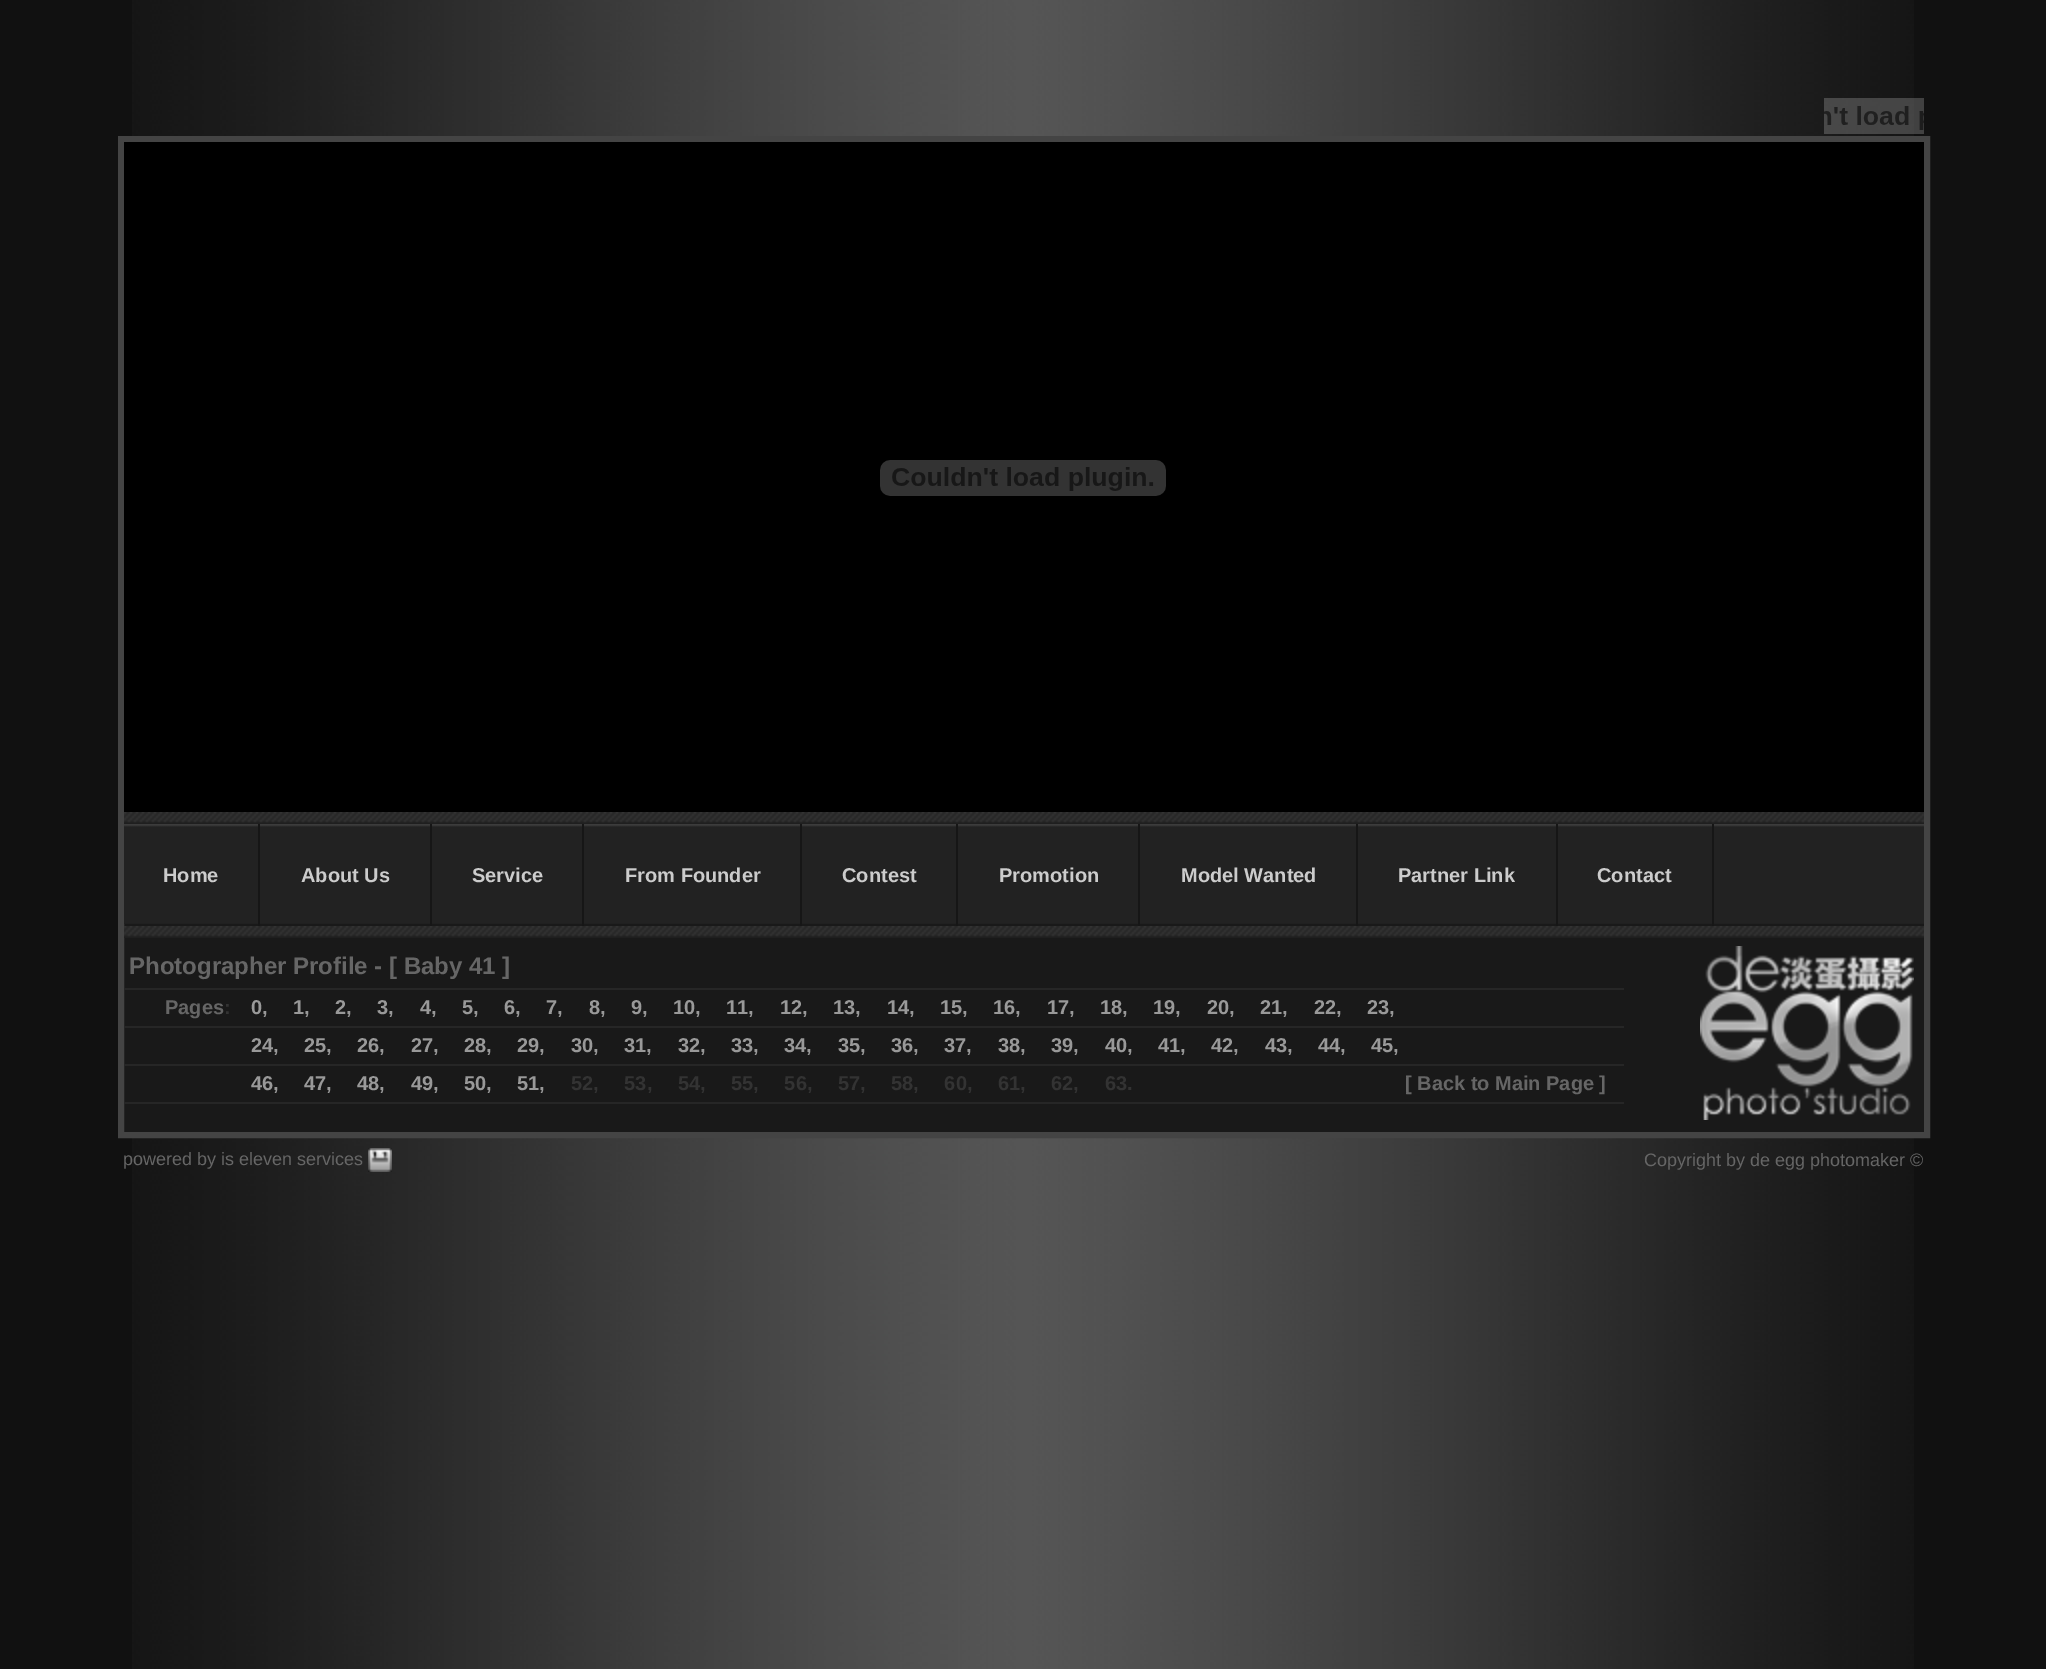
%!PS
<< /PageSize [2046 1669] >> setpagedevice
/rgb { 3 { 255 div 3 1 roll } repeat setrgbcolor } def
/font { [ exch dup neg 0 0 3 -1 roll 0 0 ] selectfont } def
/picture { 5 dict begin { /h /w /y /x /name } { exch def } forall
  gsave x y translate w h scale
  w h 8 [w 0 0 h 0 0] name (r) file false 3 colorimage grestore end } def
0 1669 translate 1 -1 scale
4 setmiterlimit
17 17 17 rgb
0 0 2046 1669 rectfill
(img/1.rgb) 132 0 1782 1669 picture
(img/2.rgb) 1824 98 100 36 picture
25 25 25 rgb
124 924 1800 208 rectfill
68 68 68 rgb
6 setlinewidth
121 139 1806 996 rectstroke
0 0 0 rgb
124 142 1800 670 rectfill
(img/3.rgb) 880 460 286 36 picture
(img/4.rgb) 124 812 1800 12 picture
(img/5.rgb) 1714 824 210 100 picture
(img/6.rgb) 124 824 134 100 picture
22 22 22 rgb
258 824 2 102 rectfill
(img/7.rgb) 260 824 170 100 picture
430 824 2 102 rectfill
(img/8.rgb) 432 824 150 100 picture
582 824 2 102 rectfill
(img/9.rgb) 584 824 216 100 picture
800 824 2 102 rectfill
(img/10.rgb) 802 824 154 100 picture
956 824 2 102 rectfill
(img/11.rgb) 958 824 180 100 picture
1138 824 2 102 rectfill
(img/9.rgb) 1140 824 216 100 picture
1356 824 2 102 rectfill
(img/12.rgb) 1358 824 198 100 picture
1556 824 2 102 rectfill
(img/10.rgb) 1558 824 154 100 picture
1712 824 2 102 rectfill
(img/4.rgb) 124 926 1800 12 picture
[
  [124 988 1500 2 38 38 38]
  [124 1026 1500 2 38 38 38]
  [124 1064 1500 2 38 38 38]
  [124 1102 1500 2 38 38 38]
] { aload pop rgb rectfill } forall
(img/13.rgb) 1700 946 214 174 picture
(img/14.rgb) 368 1148 24 24 picture
/LiberationSans-Bold 20 font
204 204 204 rgb
[
  [(Home) 163 882]
  [(About Us) 301 882]
  [(Service) 472 882]
  [(From Founder) 625 882]
  [(Contest) 842 882]
  [(Promotion) 999 882]
  [(Model Wanted) 1181 882]
  [(Partner Link) 1398 882]
  [(Contact) 1597 882]
] { aload pop moveto show } forall
/LiberationSans-Bold 24 font
102 102 102 rgb
129 974 moveto (Photographer Profile - [ Baby 41 ]) show
/LiberationSans-Bold 20 font
165 1014 moveto (Pages) show
51 51 51 rgb
224 1014 moveto (:) show
153 153 153 rgb
[
  [(0,) 251 1014]
  [(1,) 293 1014]
  [(2,) 335 1014]
  [(3,) 377 1014]
  [(4,) 420 1014]
  [(5,) 462 1014]
  [(6,) 504 1014]
  [(7,) 546 1014]
  [(8,) 589 1014]
  [(9,) 631 1014]
  [(10,) 673 1014]
  [(11,) 726 1014]
  [(12,) 780 1014]
  [(13,) 833 1014]
  [(14,) 887 1014]
  [(15,) 940 1014]
  [(16,) 993 1014]
  [(17,) 1047 1014]
  [(18,) 1100 1014]
  [(19,) 1153 1014]
  [(20,) 1207 1014]
  [(21,) 1260 1014]
  [(22,) 1314 1014]
  [(23,) 1367 1014]
  [(24,) 251 1052]
  [(25,) 304 1052]
  [(26,) 357 1052]
  [(27,) 411 1052]
  [(28,) 464 1052]
  [(29,) 517 1052]
  [(30,) 571 1052]
  [(31,) 624 1052]
  [(32,) 678 1052]
  [(33,) 731 1052]
  [(34,) 784 1052]
  [(35,) 838 1052]
  [(36,) 891 1052]
  [(37,) 944 1052]
  [(38,) 998 1052]
  [(39,) 1051 1052]
  [(40,) 1105 1052]
  [(41,) 1158 1052]
  [(42,) 1211 1052]
  [(43,) 1265 1052]
  [(44,) 1318 1052]
  [(45,) 1371 1052]
  [(46,) 251 1090]
  [(47,) 304 1090]
  [(48,) 357 1090]
  [(49,) 411 1090]
  [(50,) 464 1090]
  [(51,) 517 1090]
] { aload pop moveto show } forall
51 51 51 rgb
571 1090 moveto 20 0 32 (52, 53, 54, 55, 56, 57, 58, 60, 61, 62, 63.) widthshow
102 102 102 rgb
1405 1090 moveto ([ Back to Main Page ]) show
/LiberationSans-Regular 18 font
123 1165 moveto (powered by is eleven services) show
1644 1166 moveto (Copyright by de egg photomaker ©) show
showpage
